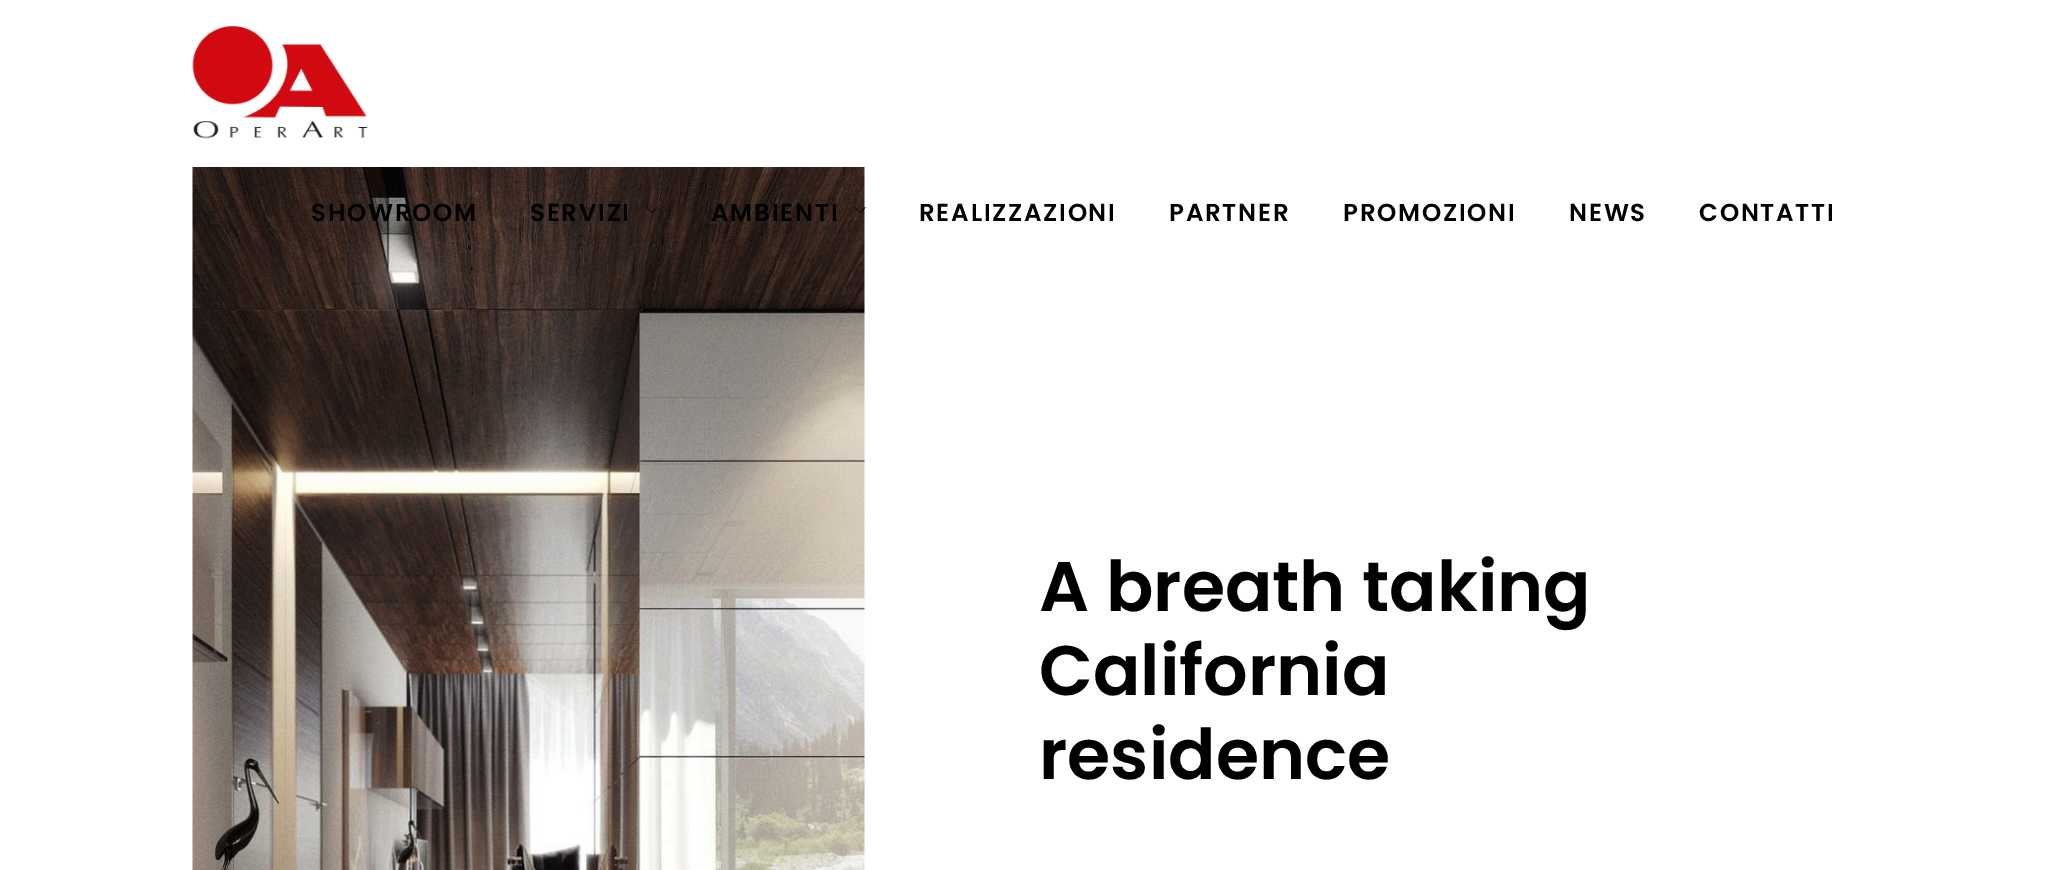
%!PS
<< /PageSize [2063 870] >> setpagedevice
/rgb { 3 { 255 div 3 1 roll } repeat setrgbcolor } def
/font { [ exch dup neg 0 0 3 -1 roll 0 0 ] selectfont } def
/picture { 5 dict begin { /h /w /y /x /name } { exch def } forall
  gsave x y translate w h scale
  w h 8 [w 0 0 h 0 0] name (r) file false 3 colorimage grestore end } def
0 870 translate 1 -1 scale
4 setmiterlimit
255 255 255 rgb
0 0 2063 870 rectfill
(img/1.rgb) 192 26 176 113 picture
(img/4.rgb) 192 167 673 703 picture
(img/2.rgb) 646 207 12 6 picture
(img/3.rgb) 854 207 12 6 picture
/Poppins-SemiBold 24.5 font
0 0 0 rgb
311 221 moveto 1.75 0 (SHOWROOM) ashow
530 221 moveto 1.75 0 (SERVIZI) ashow
711 221 moveto 1.75 0 (AMBIENTI) ashow
919 221 moveto 1.75 0 (REALIZZAZIONI) ashow
1169 221 moveto 1.75 0 (PARTNER) ashow
1343 221 moveto 1.75 0 (PROMOZIONI) ashow
1569 221 moveto 1.75 0 (NEWS) ashow
1699 221 moveto 1.75 0 (CONTATTI) ashow
/Poppins-SemiBold 70 font
[
  [(A breath taking) 1039 611]
  [(California) 1039 695]
  [(residence) 1039 779]
] { aload pop moveto show } forall
showpage
